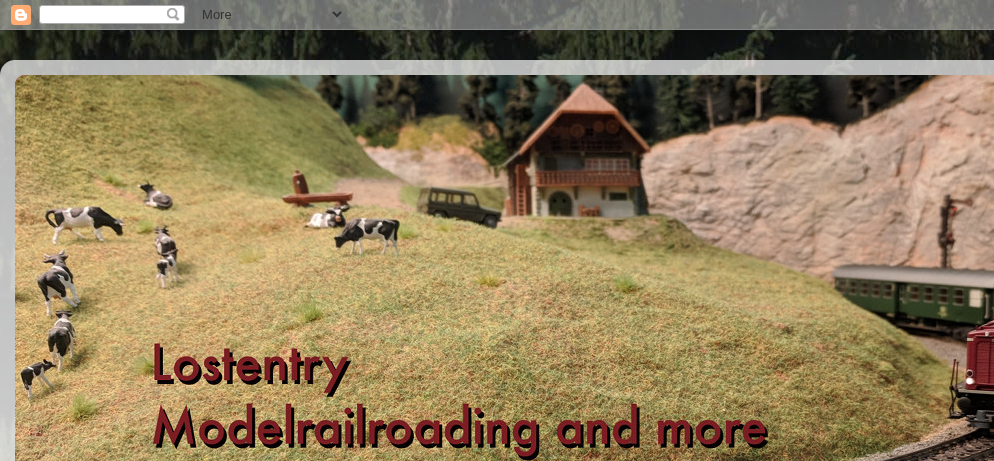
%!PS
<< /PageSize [994 461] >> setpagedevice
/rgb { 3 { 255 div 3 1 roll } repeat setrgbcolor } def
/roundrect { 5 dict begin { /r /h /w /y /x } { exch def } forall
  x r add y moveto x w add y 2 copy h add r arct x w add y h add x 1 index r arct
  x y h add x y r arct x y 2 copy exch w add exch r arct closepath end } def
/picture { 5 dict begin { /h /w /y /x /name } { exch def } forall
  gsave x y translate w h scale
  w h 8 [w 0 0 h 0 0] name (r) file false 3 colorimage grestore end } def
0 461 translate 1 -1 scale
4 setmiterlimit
255 255 255 rgb
0 0 994 461 rectfill
(img/1.rgb) 0 0 994 461 picture
(img/2.rgb) 0 0 994 30 picture
(img/3.rgb) 0 60 994 401 picture
153 34 17 rgb
15 75 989 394 10 roundrect fill
(img/4.rgb) 15 75 10 10 picture
(img/5.rgb) 15 75 979 386 picture
showpage
